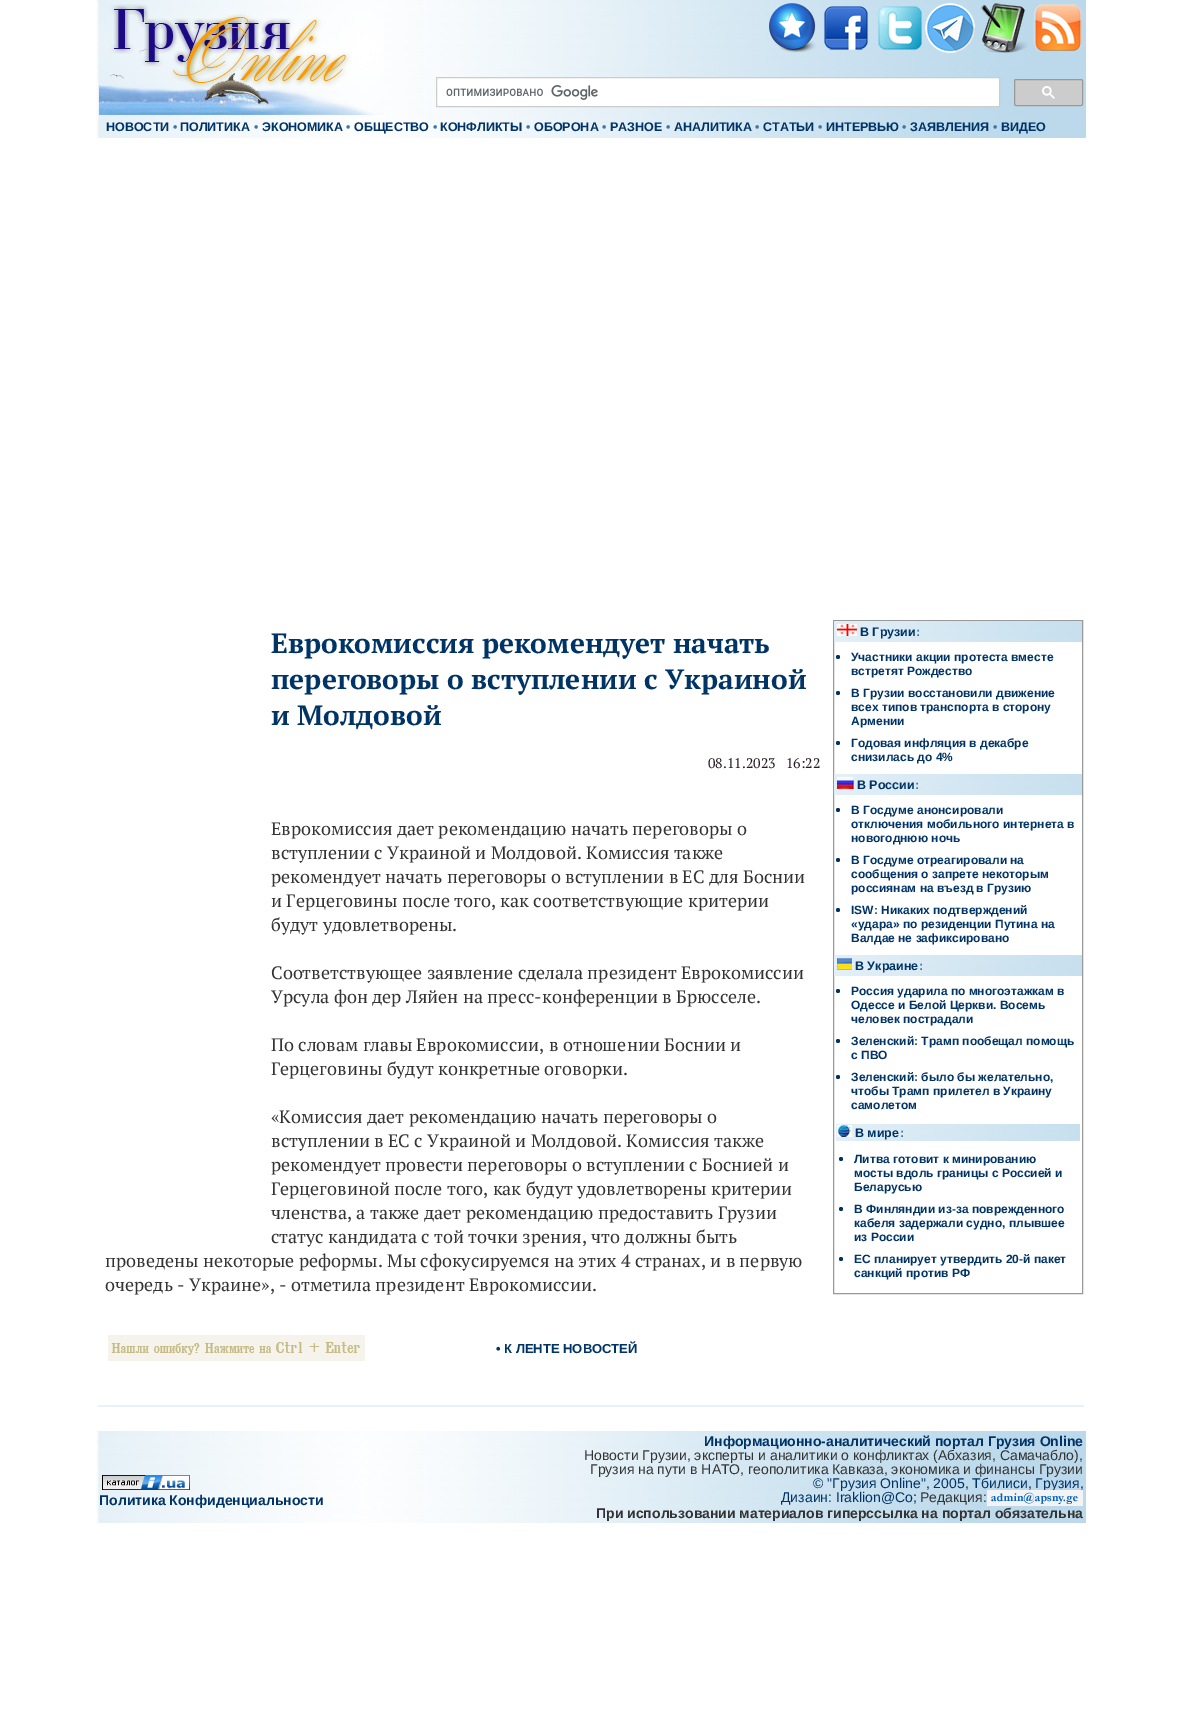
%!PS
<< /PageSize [1182 1721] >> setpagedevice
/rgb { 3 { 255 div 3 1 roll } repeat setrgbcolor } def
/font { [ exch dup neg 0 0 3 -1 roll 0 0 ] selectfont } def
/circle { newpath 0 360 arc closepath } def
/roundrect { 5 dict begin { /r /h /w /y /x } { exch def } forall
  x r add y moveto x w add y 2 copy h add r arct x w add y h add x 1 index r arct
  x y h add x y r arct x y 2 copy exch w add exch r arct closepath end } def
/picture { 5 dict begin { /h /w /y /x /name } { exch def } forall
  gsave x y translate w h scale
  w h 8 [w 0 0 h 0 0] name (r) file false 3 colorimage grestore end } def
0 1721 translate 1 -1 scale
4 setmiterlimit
255 255 255 rgb
0 0 1182 1721 rectfill
(img/1.rgb) 96 0 990 138 picture
(img/2.rgb) 99 4 285 111 picture
(img/3.rgb) 769 3 47 50 picture
(img/4.rgb) 824 6 44 44 picture
(img/5.rgb) 878 6 44 44 picture
(img/6.rgb) 925 3 50 50 picture
(img/7.rgb) 981 3 47 50 picture
(img/8.rgb) 1033 4 49 48 picture
436.5 77.5 moveto 999.5 77.5 lineto 999.5 106.5 lineto 436.5 106.5 lineto closepath gsave fill grestore
204 204 204 rgb
stroke
(img/9.rgb) 446 85 152 15 picture
1014.5 79.5 68 26 1.5 roundrect gsave fill grestore
153 153 153 rgb
stroke
(img/10.rgb) 1042 86 13 13 picture
(img/11.rgb) 108 1335 257 26 picture
833.5 620.5 249 673 rectstroke
(img/12.rgb) 834 621 248 21 picture
(img/13.rgb) 837 624 20 12 picture
0 51 102 rgb
838 657 2 circle fill
838 693 2 circle fill
838 743 2 circle fill
(img/12.rgb) 834 774 248 21 picture
(img/14.rgb) 837 777 17 12 picture
838 810 2 circle fill
838 860 2 circle fill
838 910 2 circle fill
(img/12.rgb) 834 955 248 21 picture
(img/15.rgb) 837 958 15 12 picture
838 991 2 circle fill
838 1041 2 circle fill
838 1077 2 circle fill
(img/16.rgb) 836 1124 244 17 picture
(img/17.rgb) 837 1125 15 12 picture
841 1159 2 circle fill
841 1209 2 circle fill
841 1259 2 circle fill
232 243 249 rgb
98 1405 986 2 rectfill
(img/18.rgb) 96 1431 990 92 picture
(img/19.rgb) 102 1475 88 15 picture
/LiberationSans-Bold 12.5 font
0 51 102 rgb
106 131 moveto (НОВОСТИ) show
61 117 168 rgb
173 131 moveto (•) show
0 51 102 rgb
180 131 moveto (ПОЛИТИКА) show
61 117 168 rgb
254 131 moveto (•) show
0 51 102 rgb
262 131 moveto (ЭКОНОМИКА) show
61 117 168 rgb
346 131 moveto (•) show
0 51 102 rgb
354 131 moveto (ОБЩЕСТВО) show
61 117 168 rgb
433 131 moveto (•) show
0 51 102 rgb
440 131 moveto (КОНФЛИКТЫ) show
61 117 168 rgb
526 131 moveto (•) show
0 51 102 rgb
534 131 moveto (ОБОРОНА) show
61 117 168 rgb
602 131 moveto (•) show
0 51 102 rgb
610 131 moveto (РАЗНОЕ) show
61 117 168 rgb
666 131 moveto (•) show
0 51 102 rgb
674 131 moveto (АНАЛИТИКА) show
61 117 168 rgb
755 131 moveto (•) show
0 51 102 rgb
763 131 moveto (СТАТЬИ) show
61 117 168 rgb
818 131 moveto (•) show
0 51 102 rgb
826 131 moveto (ИНТЕРВЬЮ) show
61 117 168 rgb
902 131 moveto (•) show
0 51 102 rgb
910 131 moveto (ЗАЯВЛЕНИЯ) show
61 117 168 rgb
993 131 moveto (•) show
0 51 102 rgb
1001 131 moveto (ВИДЕО) show
/PTSerif-Bold 28 font
[
  [(Еврокомиссия рекомендует начать) 271 653]
  [(переговоры о вступлении с Украиной) 271 689]
  [(и Молдовой) 271 725]
] { aload pop moveto show } forall
/PTSerif-Regular 14 font
41 28 36 rgb
708 768 moveto (08.11.2023   16:22) show
/PTSerif-Regular 18 font
51 51 51 rgb
[
  [(Еврокомиссия дает рекомендацию начать переговоры о) 271 835]
  [(вступлении с Украиной и Молдовой. Комиссия также) 271 859]
  [(рекомендует начать переговоры о вступлении в ЕС для Боснии) 271 883]
  [(и Герцеговины после того, как соответствующие критерии) 271 907]
  [(будут удовлетворены.) 271 931]
  [(Соответствующее заявление сделала президент Еврокомиссии) 271 979]
  [(Урсула фон дер Ляйен на пресс-конференции в Брюсселе.) 271 1003]
  [(По словам главы Еврокомиссии, в отношении Боснии и) 271 1051]
  [(Герцеговины будут конкретные оговорки.) 271 1075]
  [(«Комиссия дает рекомендацию начать переговоры о) 271 1123]
  [(вступлении в ЕС с Украиной и Молдовой. Комиссия также) 271 1147]
  [(рекомендует провести переговоры о вступлении с Боснией и) 271 1171]
  [(Герцеговиной после того, как будут удовлетворены критерии) 271 1195]
  [(членства, а также дает рекомендацию предоставить Грузии) 271 1219]
  [(статус кандидата с той точки зрения, что должны быть) 271 1243]
  [(проведены некоторые реформы. Мы сфокусируемся на этих 4 странах, и в первую) 105 1267]
  [(очередь - Украине», - отметила президент Еврокомиссии.) 105 1291]
] { aload pop moveto show } forall
/LiberationSans-Bold 13 font
0 51 102 rgb
496 1353 moveto (• К ЛЕНТЕ НОВОСТЕЙ) show
/LiberationSans-Bold 12.5 font
860 636 moveto (В Грузии) show
61 117 168 rgb
916 636 moveto (:) show
/LiberationSans-Bold 12 font
0 51 102 rgb
[
  [(Участники акции протеста вместе) 851 661]
  [(встретят Рождество) 851 675]
  [(В Грузии восстановили движение) 851 697]
  [(всех типов транспорта в сторону) 851 711]
  [(Армении) 851 725]
  [(Годовая инфляция в декабре) 851 747]
  [(снизилась до 4%) 851 761]
] { aload pop moveto show } forall
/LiberationSans-Bold 12.5 font
857 789 moveto (В России) show
61 117 168 rgb
915 789 moveto (:) show
/LiberationSans-Bold 12 font
0 51 102 rgb
[
  [(В Госдуме анонсировали) 851 814]
  [(отключения мобильного интернета в) 851 828]
  [(новогоднюю ночь) 851 842]
  [(В Госдуме отреагировали на) 851 864]
  [(сообщения о запрете некоторым) 851 878]
  [(россиянам на въезд в Грузию) 851 892]
  [(ISW: Никаких подтверждений) 851 914]
  [(«удара» по резиденции Путина на) 851 928]
  [(Валдае не зафиксировано) 851 942]
] { aload pop moveto show } forall
/LiberationSans-Bold 12.5 font
855 970 moveto (В Украине) show
61 117 168 rgb
919 970 moveto (:) show
/LiberationSans-Bold 12 font
0 51 102 rgb
[
  [(Россия ударила по многоэтажкам в) 851 995]
  [(Одессе и Белой Церкви. Восемь) 851 1009]
  [(человек пострадали) 851 1023]
  [(Зеленский: Трамп пообещал помощь) 851 1045]
  [(с ПВО) 851 1059]
  [(Зеленский: было бы желательно,) 851 1081]
  [(чтобы Трамп прилетел в Украину) 851 1095]
  [(самолетом) 851 1109]
] { aload pop moveto show } forall
/LiberationSans-Bold 12.5 font
855 1137 moveto (В мире) show
61 117 168 rgb
900 1137 moveto (:) show
/LiberationSans-Bold 12 font
0 51 102 rgb
[
  [(Литва готовит к минированию) 854 1163]
  [(мосты вдоль границы с Россией и) 854 1177]
  [(Беларусью) 854 1191]
  [(В Финляндии из-за поврежденного) 854 1213]
  [(кабеля задержали судно, плывшее) 854 1227]
  [(из России) 854 1241]
  [(ЕС планирует утвердить 20-й пакет) 854 1263]
  [(санкций против РФ) 854 1277]
] { aload pop moveto show } forall
/LiberationSans-Bold 14 font
99 1505 moveto (Политика Конфиденциальности) show
704 1446 moveto (Информационно-аналитический портал Грузия Online) show
/LiberationSans-Regular 14 font
51 51 51 rgb
584 1460 moveto (Новости Грузии, эксперты и аналитики о конфликтах \(Абхазия, Самачабло\),) show
590 1474 moveto (Грузия на пути в НАТО, геополитика Кавказа, экономика и финансы Грузии) show
0 51 102 rgb
813 1488 moveto (© "Грузия Online", 2005, Тбилиси, Грузия,) show
781 1502 moveto (Дизаин: Iraklion@Co;) show
51 51 51 rgb
920 1502 moveto (Редакция:) show
(img/20.rgb) 987 1490 96 16 picture
/LiberationSans-Bold 14 font
596 1518 moveto (При использовании материалов гиперссылка на портал обязательна) show
showpage
